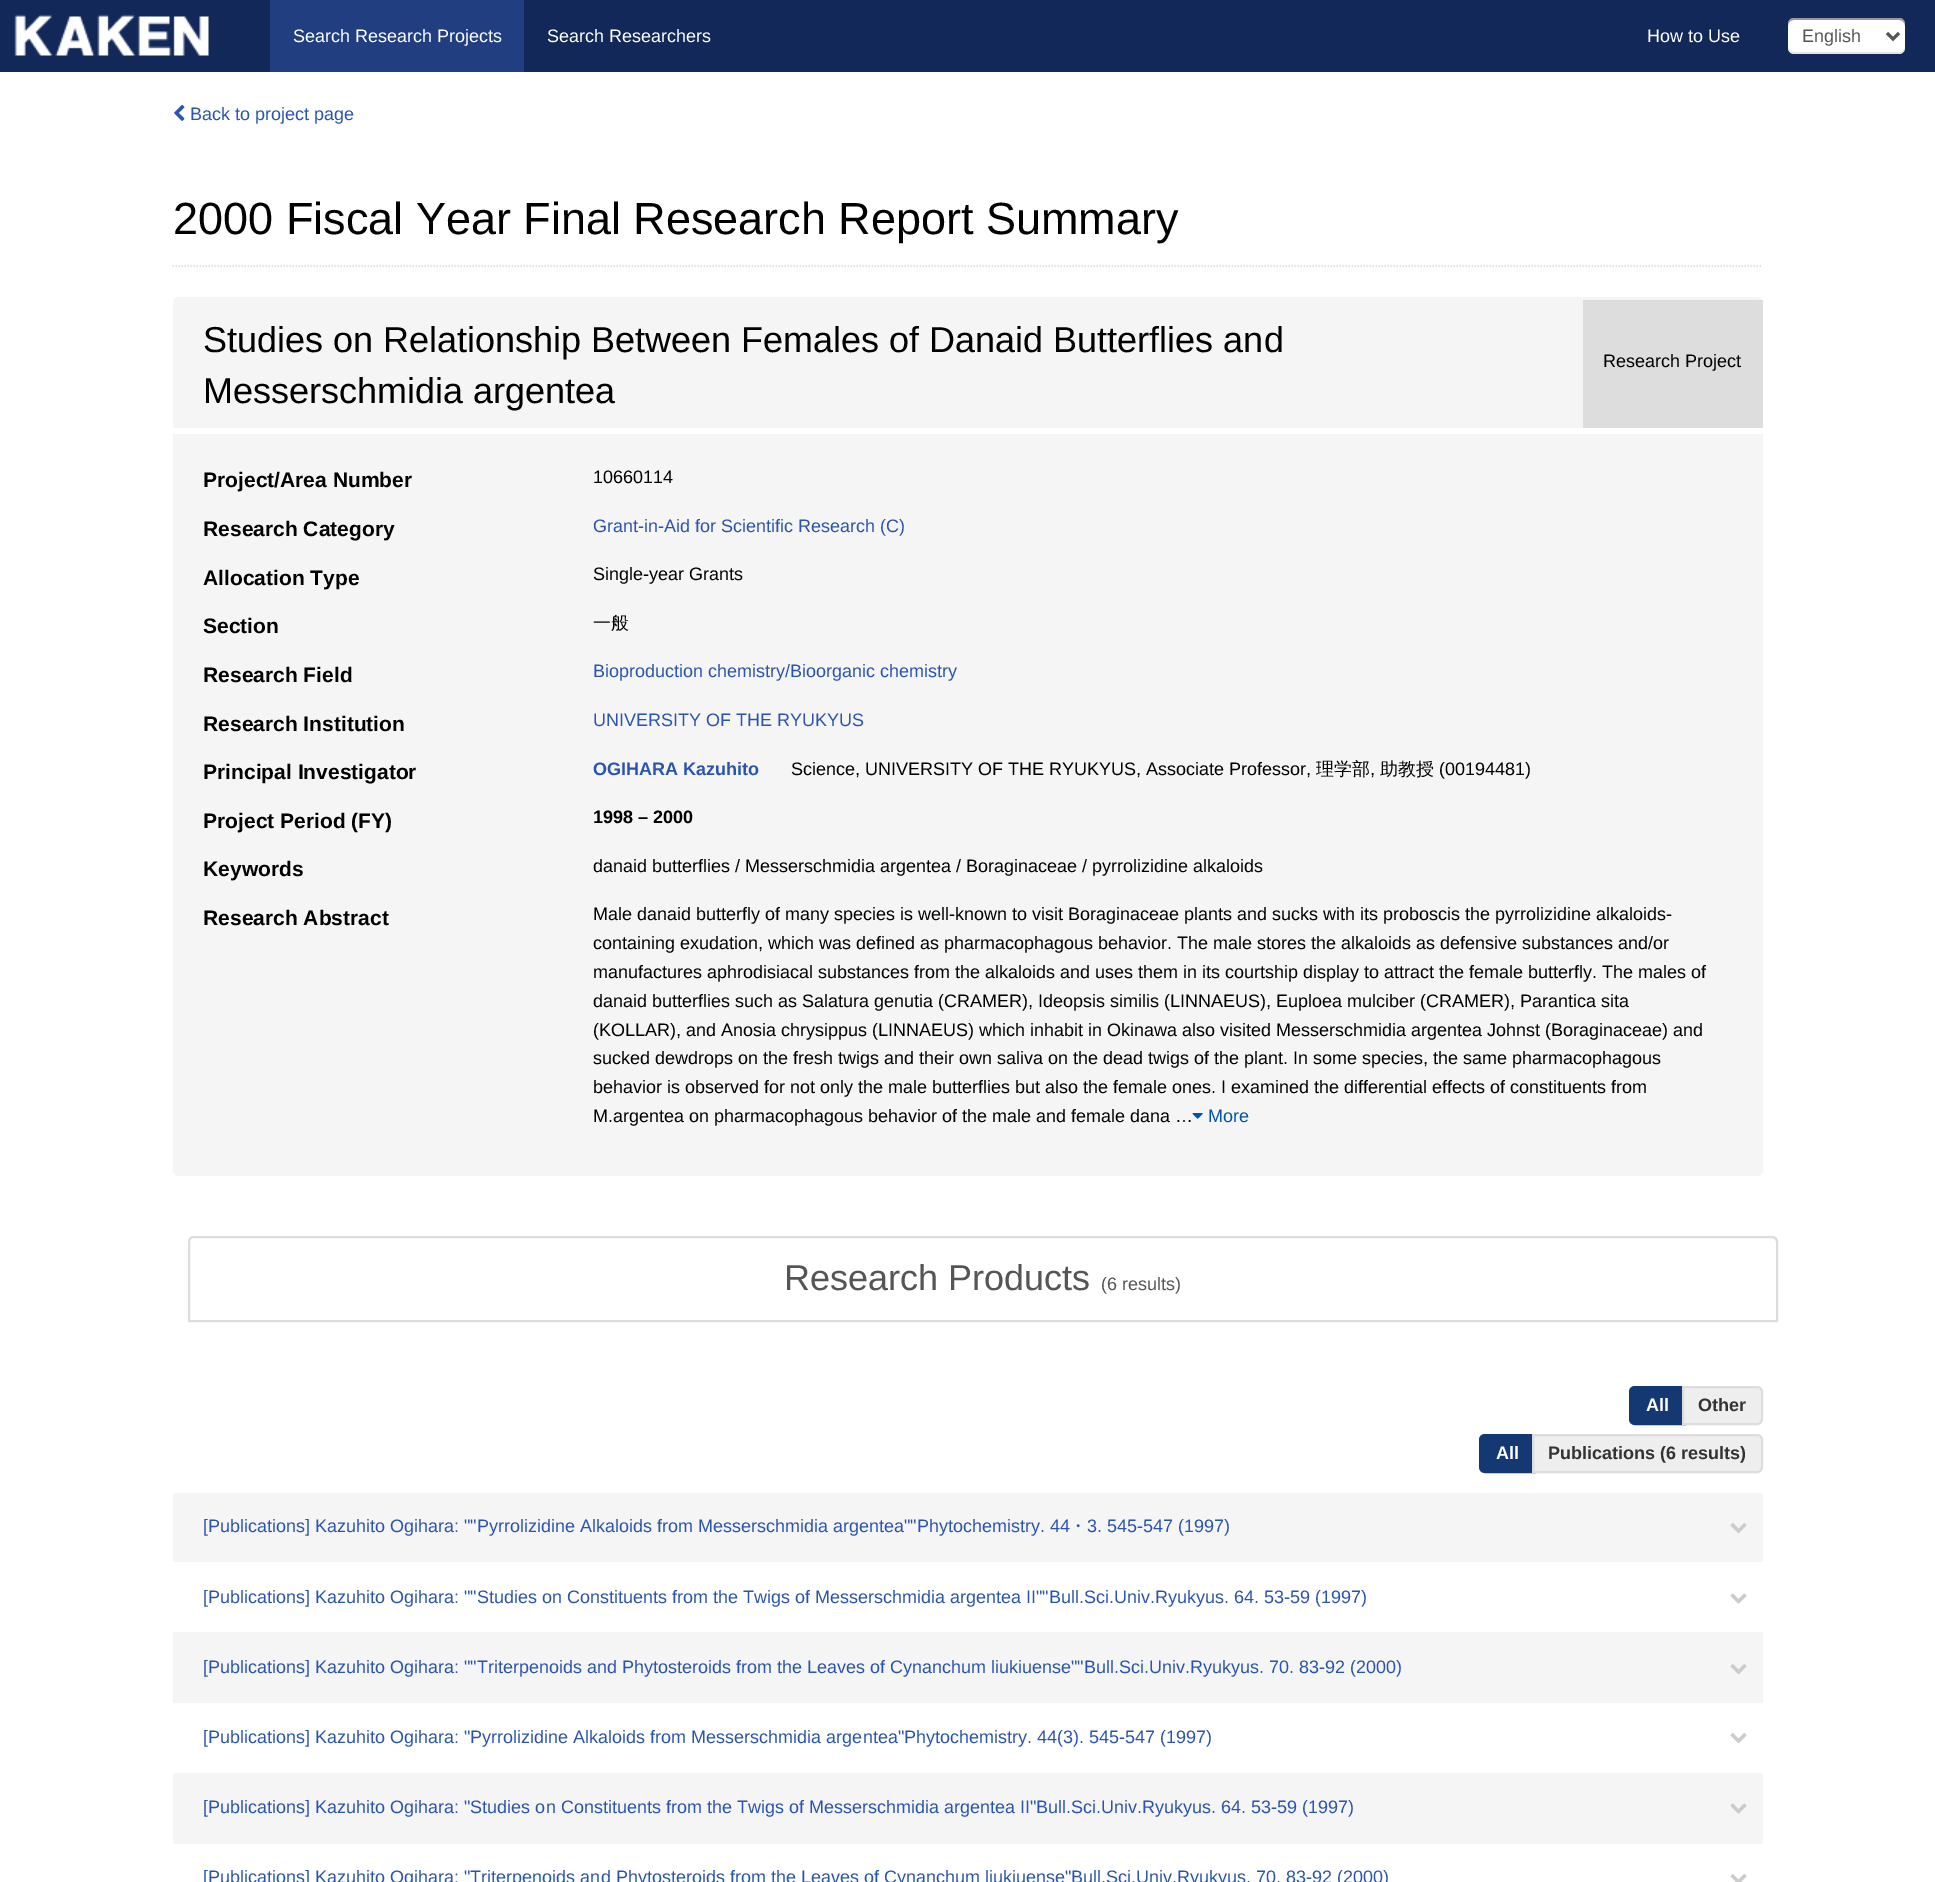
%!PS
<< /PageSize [1935 1882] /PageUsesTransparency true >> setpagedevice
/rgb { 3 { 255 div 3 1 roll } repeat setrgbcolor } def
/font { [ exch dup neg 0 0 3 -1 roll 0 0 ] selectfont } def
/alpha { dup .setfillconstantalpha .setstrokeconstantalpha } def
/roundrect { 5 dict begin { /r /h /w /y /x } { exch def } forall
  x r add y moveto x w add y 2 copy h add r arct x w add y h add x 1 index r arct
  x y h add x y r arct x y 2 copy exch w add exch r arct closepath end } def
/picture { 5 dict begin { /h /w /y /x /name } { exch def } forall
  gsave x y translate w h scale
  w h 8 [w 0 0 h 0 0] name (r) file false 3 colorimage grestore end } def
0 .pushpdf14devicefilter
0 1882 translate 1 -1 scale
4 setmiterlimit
255 255 255 rgb
0 0 1935 1882 rectfill
18 40 88 rgb
0 0 1935 72 rectfill
(img/1.rgb) 14 14 195 42 picture
32 62 128 rgb
270 0 254 72 rectfill
255 255 255 rgb
1788 18 117 36 6 roundrect fill
0.1 alpha
0 0 0 rgb
1788 46 moveto 1788 48 lineto 1788 51 1791 54 1794 54 curveto 1899 54 lineto 1902 54 1905 51 1905 48 curveto 1905 46 lineto 1905 50 1902 52 1899 52 curveto 1794 52 lineto 1791 52 1788 50 1788 46 curveto closepath fill
0.4 alpha
1794 20 moveto 1899 20 lineto 1902 20 1905 22 1905 26 curveto 1905 24 lineto 1905 21 1902 18 1899 18 curveto 1794 18 lineto 1791 18 1788 21 1788 24 curveto 1788 26 lineto 1788 22 1791 20 1794 20 curveto closepath fill
1 alpha
85 85 85 rgb
3 setlinewidth
1887 33 moveto 1893 39 lineto 1899 33 lineto stroke
(img/2.rgb) 174 104 11 17 picture
221 221 221 rgb
1.5 setlinewidth
[1.5 1.5] 0 setdash
172.5 266 moveto 1762.5 266 lineto stroke
245 245 245 rgb
173 297 1590 879 6 roundrect fill
221 221 221 rgb
1583 300 180 128 rectfill
255 255 255 rgb
173 428 1590 6 rectfill
(img/3.rgb) 1192 1113 11 6 picture
221 221 221 rgb
2 setlinewidth
[] 0 setdash
194 1237 moveto 1772 1237 lineto 1775 1237 1777 1239 1777 1242 curveto 1777 1321 lineto 189 1321 lineto 189 1242 lineto 189 1239 191 1237 194 1237 curveto closepath stroke
20 56 114 rgb
1635 1387 moveto 1685 1387 lineto 1685 1424 lineto 1635 1424 lineto 1632 1424 1630 1422 1630 1419 curveto 1630 1392 lineto 1630 1389 1632 1387 1635 1387 curveto closepath gsave fill grestore
stroke
238 238 238 rgb
1683 1387 moveto 1757 1387 lineto 1760 1387 1762 1389 1762 1392 curveto 1762 1419 lineto 1762 1422 1760 1424 1757 1424 curveto 1683 1424 lineto closepath gsave fill grestore
221 221 221 rgb
stroke
20 56 114 rgb
1485 1435 moveto 1535 1435 lineto 1535 1472 lineto 1485 1472 lineto 1482 1472 1480 1470 1480 1467 curveto 1480 1440 lineto 1480 1437 1482 1435 1485 1435 curveto closepath gsave fill grestore
stroke
238 238 238 rgb
1533 1435 moveto 1757 1435 lineto 1760 1435 1762 1437 1762 1440 curveto 1762 1467 lineto 1762 1470 1760 1472 1757 1472 curveto 1533 1472 lineto closepath gsave fill grestore
221 221 221 rgb
stroke
245 245 245 rgb
173 1493 1590 69 rectfill
(img/4.rgb) 1730 1523 17 11 picture
(img/5.rgb) 1730 1593 17 11 picture
173 1632 1590 71 rectfill
(img/4.rgb) 1730 1664 17 11 picture
(img/6.rgb) 1730 1733 17 11 picture
173 1773 1590 71 rectfill
(img/7.rgb) 1730 1803 17 11 picture
(img/8.rgb) 1730 1874 17 8 picture
/LiberationSans-Regular 18 font
255 255 255 rgb
[
  [(Search Research Projects) 293 42]
  [(Search Researchers) 547 42]
  [(How to Use) 1647 42]
] { aload pop moveto show } forall
85 85 85 rgb
1802 42 moveto (English) show
41 84 175 rgb
190 120 moveto (Back to project page) show
/LiberationSans-Regular 45 font
0 0 0 rgb
173 234 moveto (2000 Fiscal Year Final Research Report Summary) show
/LiberationSans-Regular 36 font
203 352 moveto (Studies on Relationship Between Females of Danaid Butterflies and) show
203 403 moveto (Messerschmidia argentea) show
/LiberationSans-Regular 18 font
1603 367 moveto (Research Project) show
/LiberationSans-Bold 21 font
203 487 moveto (Project/Area Number) show
/LiberationSans-Regular 18 font
593 483 moveto (10660114) show
/LiberationSans-Bold 21 font
203 536 moveto (Research Category) show
/LiberationSans-Regular 18 font
41 84 175 rgb
593 532 moveto (Grant-in-Aid for Scientific Research \(C\)) show
/LiberationSans-Bold 21 font
0 0 0 rgb
203 585 moveto (Allocation Type) show
/LiberationSans-Regular 18 font
593 580 moveto (Single-year Grants) show
/LiberationSans-Bold 21 font
203 633 moveto (Section) show
/WenQuanYiZenHei-Medium 18 font
593 629 moveto (一般) show
/LiberationSans-Bold 21 font
203 682 moveto (Research Field) show
/LiberationSans-Regular 18 font
41 84 175 rgb
593 677 moveto (Bioproduction chemistry/Bioorganic chemistry) show
/LiberationSans-Bold 21 font
0 0 0 rgb
203 731 moveto (Research Institution) show
/LiberationSans-Regular 18 font
41 84 175 rgb
593 726 moveto (UNIVERSITY OF THE RYUKYUS) show
/LiberationSans-Bold 21 font
0 0 0 rgb
203 779 moveto (Principal Investigator) show
/LiberationSans-Bold 18 font
41 84 175 rgb
593 775 moveto (OGIHARA Kazuhito) show
/LiberationSans-Regular 18 font
0 0 0 rgb
791 775 moveto (Science, UNIVERSITY OF THE RYUKYUS, Associate Professor,) show
/WenQuanYiZenHei-Medium 18 font
1316 775 moveto (理学部) show
/LiberationSans-Regular 18 font
1370 775 moveto (,) show
/WenQuanYiZenHei-Medium 18 font
1380 775 moveto (助教授) show
/LiberationSans-Regular 18 font
1439 775 moveto (\(00194481\)) show
/LiberationSans-Bold 21 font
203 828 moveto (Project Period \(FY\)) show
/LiberationSans-Bold 18 font
593 823 moveto (1998 – 2000) show
/LiberationSans-Bold 21 font
203 876 moveto (Keywords) show
/LiberationSans-Regular 18 font
593 872 moveto (danaid butterflies / Messerschmidia argentea / Boraginaceae / pyrrolizidine alkaloids) show
/LiberationSans-Bold 21 font
203 925 moveto (Research Abstract) show
/LiberationSans-Regular 18 font
[
  [(Male danaid butterfly of many species is well-known to visit Boraginaceae plants and sucks with its proboscis the pyrrolizidine alkaloids-) 593 920]
  [(containing exudation, which was defined as pharmacophagous behavior. The male stores the alkaloids as defensive substances and/or) 593 949]
  [(manufactures aphrodisiacal substances from the alkaloids and uses them in its courtship display to attract the female butterfly. The males of) 593 978]
  [(danaid butterflies such as Salatura genutia \(CRAMER\), Ideopsis similis \(LINNAEUS\), Euploea mulciber \(CRAMER\), Parantica sita) 593 1007]
  [(\(KOLLAR\), and Anosia chrysippus \(LINNAEUS\) which inhabit in Okinawa also visited Messerschmidia argentea Johnst \(Boraginaceae\) and) 593 1036]
  [(sucked dewdrops on the fresh twigs and their own saliva on the dead twigs of the plant. In some species, the same pharmacophagous) 593 1064]
  [(behavior is observed for not only the male butterflies but also the female ones. I examined the differential effects of constituents from) 593 1093]
  [(M.argentea on pharmacophagous behavior of the male and female dana …) 593 1122]
] { aload pop moveto show } forall
0 85 170 rgb
1208 1122 moveto (More) show
/LiberationSans-Regular 36 font
85 85 85 rgb
784 1290 moveto (Research Products) show
/LiberationSans-Regular 18 font
1101 1290 moveto (\(6 results\)) show
/LiberationSans-Bold 18 font
255 255 255 rgb
1646 1411 moveto (All) show
51 51 51 rgb
1698 1411 moveto (Other) show
255 255 255 rgb
1496 1459 moveto (All) show
51 51 51 rgb
1548 1459 moveto (Publications \(6 results\)) show
/LiberationSans-Regular 18 font
41 84 175 rgb
203 1532 moveto ([Publications] Kazuhito Ogihara: ""Pyrrolizidine Alkaloids from Messerschmidia argentea""Phytochemistry. 44) show
/WenQuanYiZenHei-Medium 18 font
1069 1532 moveto (・) show
/LiberationSans-Regular 18 font
[
  [(3. 545-547 \(1997\)) 1087 1532]
  [([Publications] Kazuhito Ogihara: ""Studies on Constituents from the Twigs of Messerschmidia argentea II""Bull.Sci.Univ.Ryukyus. 64. 53-59 \(1997\)) 203 1603]
  [([Publications] Kazuhito Ogihara: ""Triterpenoids and Phytosteroids from the Leaves of Cynanchum liukiuense""Bull.Sci.Univ.Ryukyus. 70. 83-92 \(2000\)) 203 1673]
  [([Publications] Kazuhito Ogihara: "Pyrrolizidine Alkaloids from Messerschmidia argentea"Phytochemistry. 44\(3\). 545-547 \(1997\)) 203 1743]
  [([Publications] Kazuhito Ogihara: "Studies on Constituents from the Twigs of Messerschmidia argentea II"Bull.Sci.Univ.Ryukyus. 64. 53-59 \(1997\)) 203 1813]
  [([Publications] Kazuhito Ogihara: "Triterpenoids and Phytosteroids from the Leaves of Cynanchum liukiuense"Bull.Sci.Univ.Ryukyus. 70. 83-92 \(2000\)) 203 1883]
] { aload pop moveto show } forall
.poppdf14devicefilter showpage
